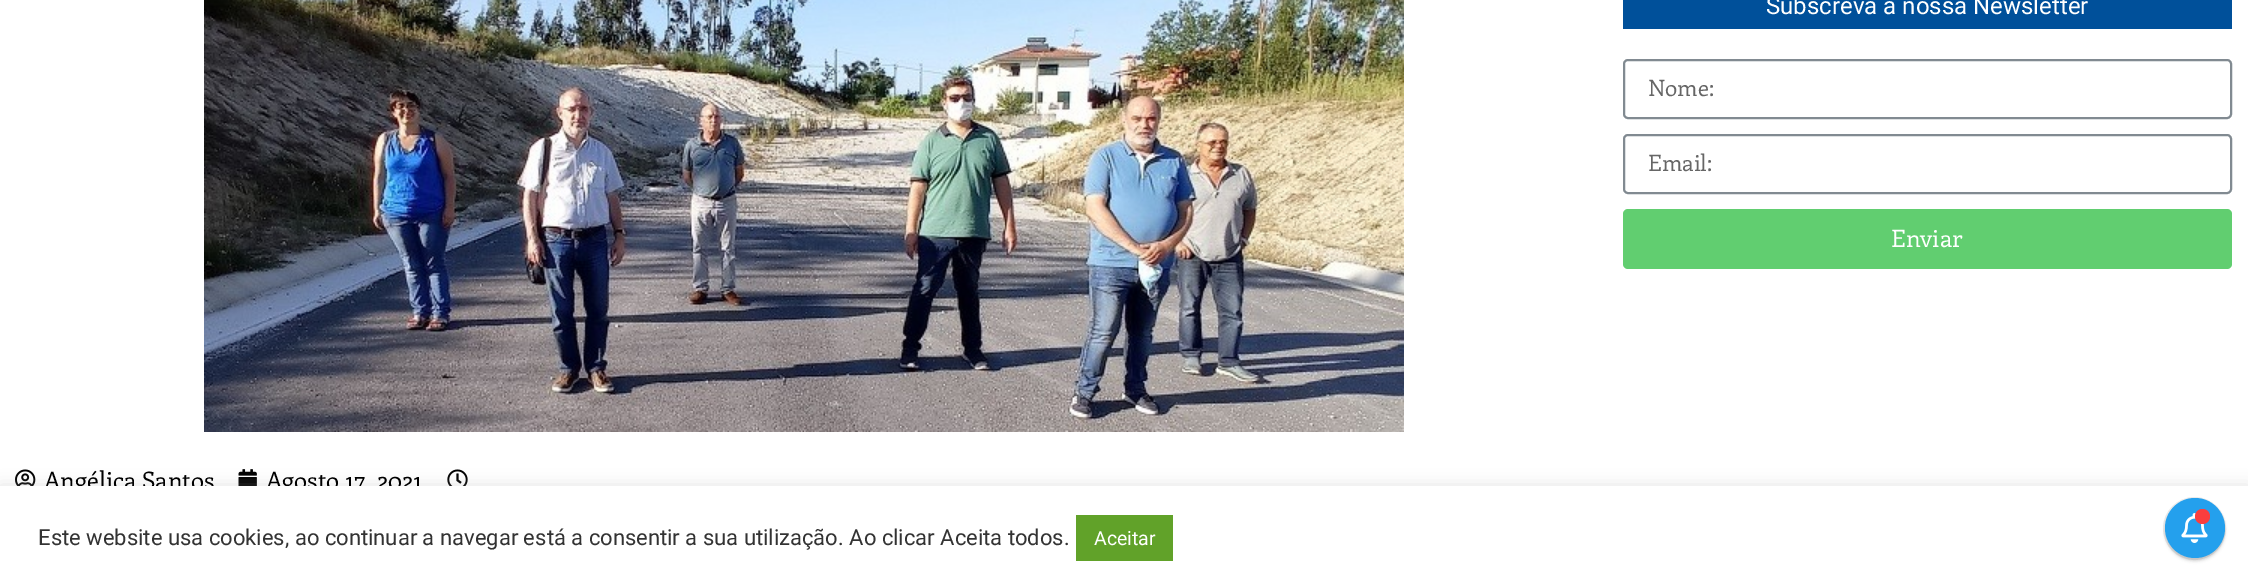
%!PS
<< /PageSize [2248 582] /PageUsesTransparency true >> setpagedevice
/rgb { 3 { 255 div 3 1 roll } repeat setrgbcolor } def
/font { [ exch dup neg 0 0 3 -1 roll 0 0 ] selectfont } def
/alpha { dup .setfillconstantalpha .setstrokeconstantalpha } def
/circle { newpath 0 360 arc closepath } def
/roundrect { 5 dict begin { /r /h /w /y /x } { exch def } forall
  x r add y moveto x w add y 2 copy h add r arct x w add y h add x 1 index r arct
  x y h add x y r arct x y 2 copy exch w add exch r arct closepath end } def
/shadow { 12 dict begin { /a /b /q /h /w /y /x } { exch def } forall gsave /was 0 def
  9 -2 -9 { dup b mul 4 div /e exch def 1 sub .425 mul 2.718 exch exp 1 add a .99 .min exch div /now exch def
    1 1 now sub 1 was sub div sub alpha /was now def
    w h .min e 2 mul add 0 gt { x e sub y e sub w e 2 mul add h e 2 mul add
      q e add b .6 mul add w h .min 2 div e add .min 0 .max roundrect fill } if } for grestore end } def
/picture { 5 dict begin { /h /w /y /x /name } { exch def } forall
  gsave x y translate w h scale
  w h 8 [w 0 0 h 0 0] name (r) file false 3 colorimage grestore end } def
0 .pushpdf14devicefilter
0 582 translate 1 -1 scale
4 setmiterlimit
255 255 255 rgb
0 0 2248 582 rectfill
0 80 154 rgb
1623 0 609 29 rectfill
129 138 145 rgb
2 setlinewidth
1624 60 607 58 4 roundrect stroke
1624 135 607 58 4 roundrect stroke
97 206 112 rgb
1623 209 609 60 5 roundrect fill
(img/1.rgb) 204 0 1200 432 picture
(img/2.rgb) 15 469 21 17 picture
(img/3.rgb) 238 469 19 17 picture
(img/4.rgb) 447 469 21 17 picture
172 171 171 rgb
0 485 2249 96 0 7.5 0.3 shadow
/Roboto-Regular 24 font
255 255 255 rgb
1766 14 moveto (Subscreva a nossa Newsletter) show
/Enriqueta-Regular 22.5 font
102 102 102 rgb
1648 96 moveto (Nome:) show
1648 171 moveto (Email:) show
/Enriqueta-Regular 24 font
255 255 255 rgb
1891 247 moveto (Enviar) show
0 0 0 rgb
44 489 moveto (Angélica Santos) show
266 489 moveto (Agosto 17, 2021) show
255 255 255 rgb
0 486 2248 96 rectfill
/Roboto-Regular 22 font
51 51 51 rgb
38 545 moveto (Este website usa cookies, ao continuar a navegar está a consentir a sua utilização. Ao clicar Aceita todos.) show
97 162 41 rgb
1076 515 97 46 rectfill
/Roboto-Regular 19.5 font
255 255 255 rgb
1094 545 moveto (Aceitar) show
235 235 235 rgb
2194.5 528.5 30.5 circle stroke
0 0 0 rgb
2165 501 60 60 30 1.5 0.16 shadow
36 160 237 rgb
2195 528 30 circle fill
(img/5.rgb) 2181 513 27 30 picture
250 62 62 rgb
2202.5 516.5 7.5 circle fill
.poppdf14devicefilter showpage
